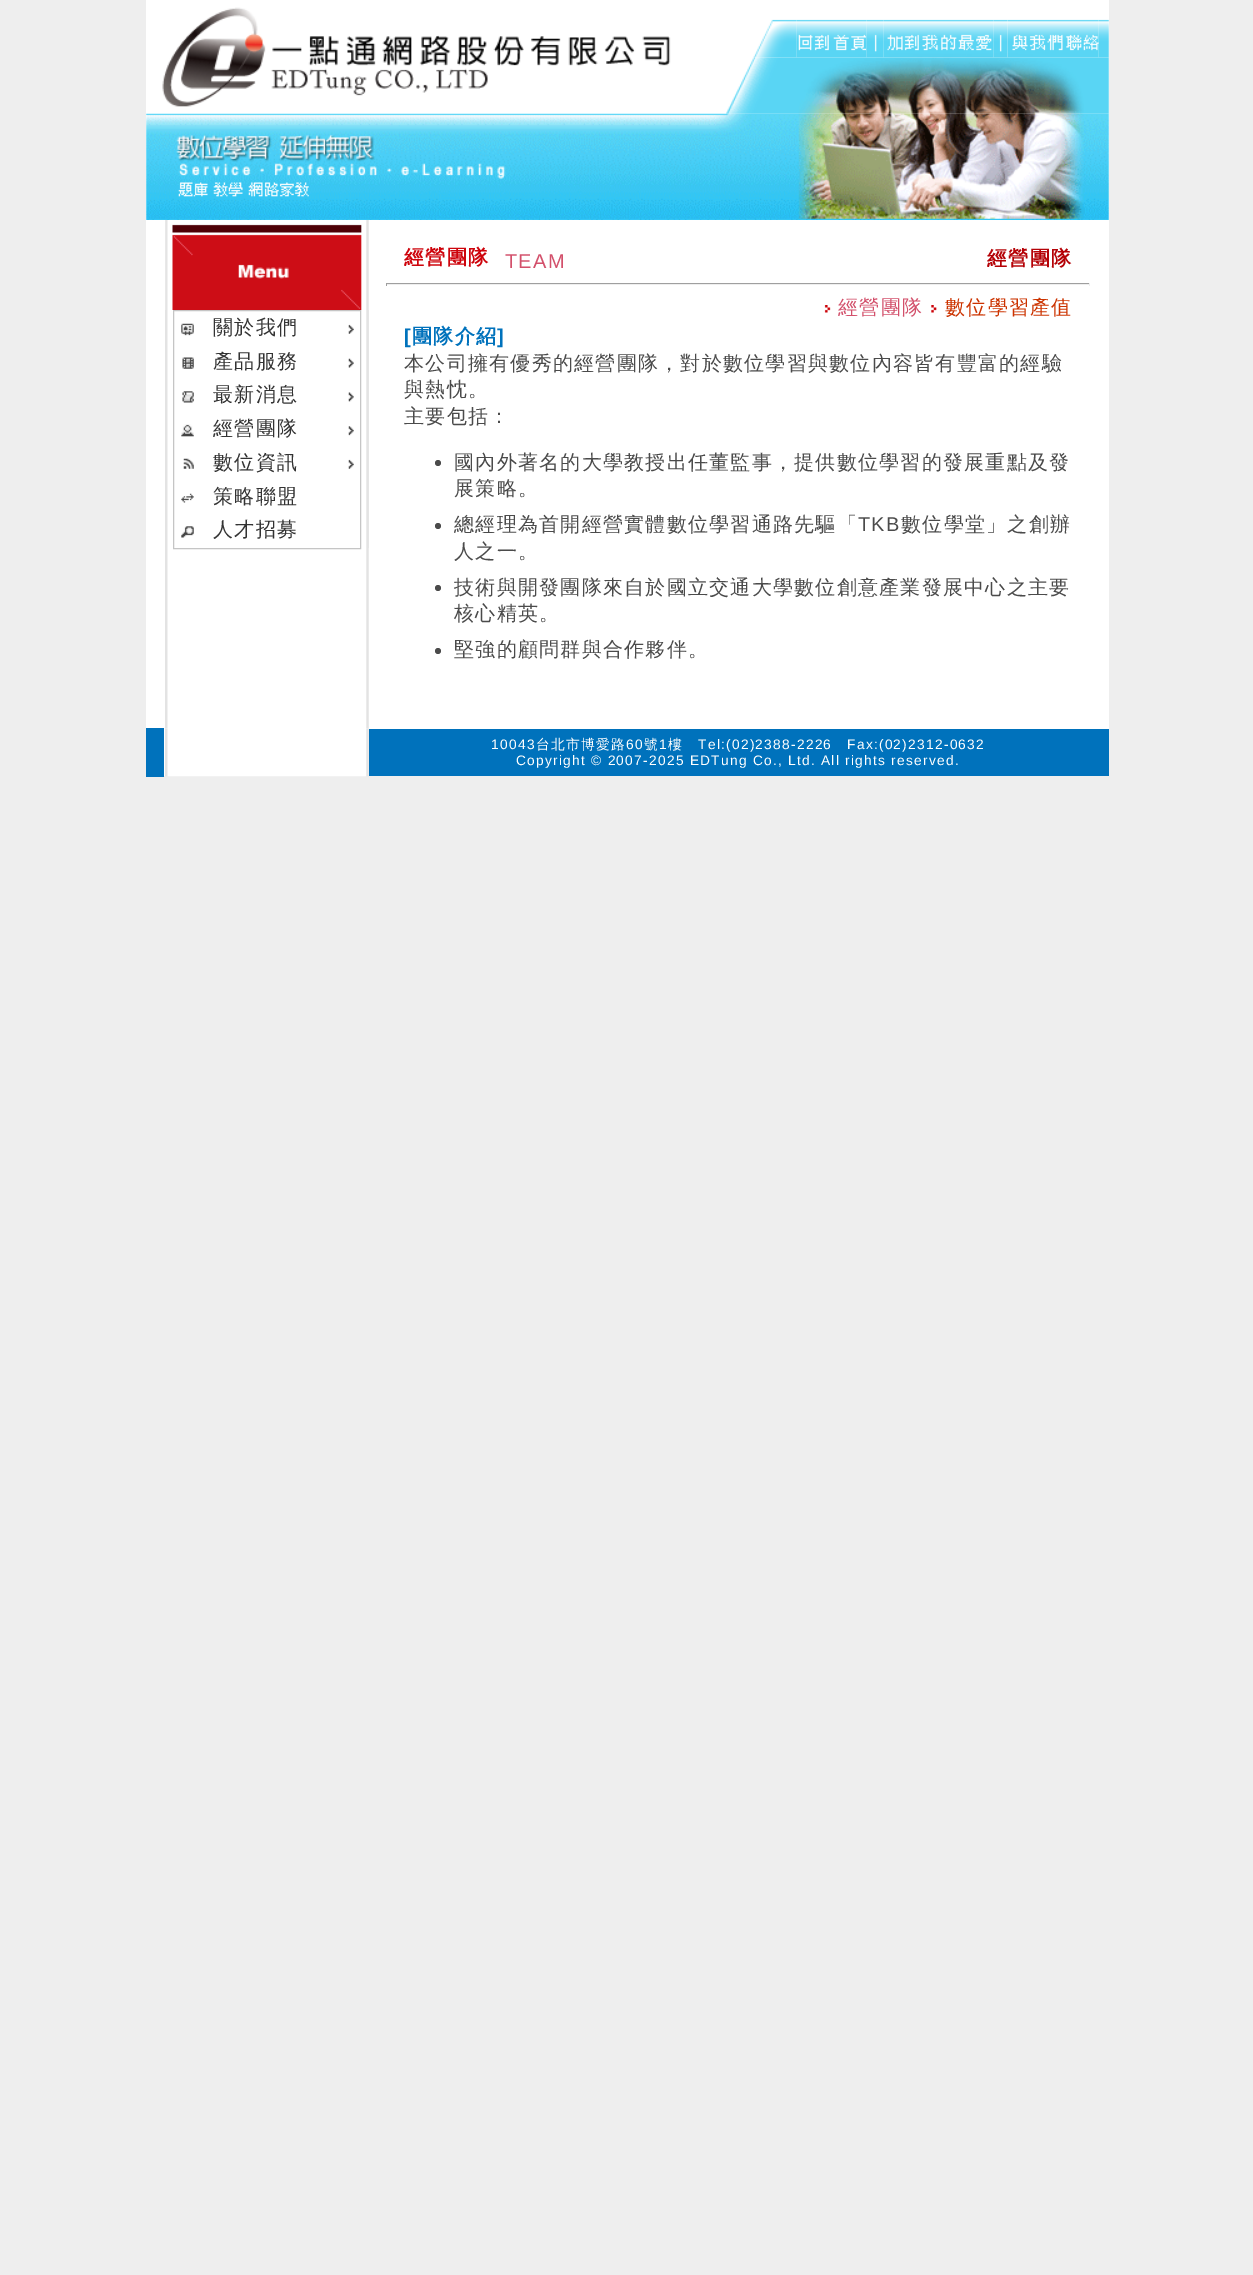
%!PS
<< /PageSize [1253 2275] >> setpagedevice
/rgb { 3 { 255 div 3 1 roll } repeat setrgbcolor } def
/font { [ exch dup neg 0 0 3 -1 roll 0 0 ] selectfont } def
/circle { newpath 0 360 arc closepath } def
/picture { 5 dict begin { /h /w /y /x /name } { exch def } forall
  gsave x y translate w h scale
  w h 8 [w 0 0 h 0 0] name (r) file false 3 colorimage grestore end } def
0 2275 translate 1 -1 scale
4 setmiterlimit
238 238 238 rgb
0 0 1253 2275 rectfill
255 255 255 rgb
146 0 963 776 rectfill
(img/1.rgb) 162 7 509 100 picture
(img/2.rgb) 753 19 44 39 picture
(img/3.rgb) 796 19 71 39 picture
(img/4.rgb) 866 19 18 39 picture
(img/5.rgb) 883 19 111 39 picture
(img/6.rgb) 993 19 15 39 picture
(img/7.rgb) 1007 19 92 39 picture
(img/8.rgb) 1098 19 11 39 picture
(img/9.rgb) 726 57 383 57 picture
(img/10.rgb) 146 113 963 107 picture
(img/11.rgb) 165 220 204 509 picture
(img/12.rgb) 165 220 197 90 picture
197 197 197 rgb
173.5 310.5 187 238 rectstroke
(img/13.rgb) 181 323 13 13 picture
(img/14.rgb) 348 324 6 10 picture
(img/15.rgb) 182 357 12 12 picture
(img/16.rgb) 348 358 6 10 picture
(img/17.rgb) 182 391 12 12 picture
(img/18.rgb) 348 392 6 10 picture
(img/19.rgb) 181 424 13 13 picture
(img/20.rgb) 348 426 6 10 picture
(img/21.rgb) 183 458 11 11 picture
(img/14.rgb) 348 459 6 10 picture
(img/22.rgb) 181 493 13 10 picture
(img/23.rgb) 181 526 13 12 picture
[
  [368 310 1 238 229 229 229]
  [386 283 704 1 159 159 159]
  [1089 283 1 3 238 238 238]
  [386 284 704 1 238 238 238]
  [386 283 1 3 159 159 159]
] { aload pop rgb rectfill } forall
(img/24.rgb) 824 305 7 8 picture
(img/25.rgb) 931 305 6 8 picture
75 75 75 rgb
438 463 3 circle fill
438 526 3 circle fill
438 588 3 circle fill
438 651 3 circle fill
0 114 188 rgb
146 728 18 49 rectfill
(img/26.rgb) 165 729 204 48 picture
369 729 740 47 rectfill
/WenQuanYiZenHei-Medium 20 font
51 51 51 rgb
213 334 moveto 1.25 0 (關於我們) ashow
213 368 moveto 1.25 0 (產品服務) ashow
213 401 moveto 1.25 0 (最新消息) ashow
213 435 moveto 1.25 0 (經營團隊) ashow
213 469 moveto 1.25 0 (數位資訊) ashow
213 503 moveto 1.25 0 (策略聯盟) ashow
213 536 moveto 1.25 0 (人才招募) ashow
/WenQuanYiZenHei-Bold 20 font
206 4 12 rgb
404 264 moveto 1.25 0 (經營團隊) ashow
/LiberationSans-Regular 20 font
211 80 107 rgb
505 268 moveto 1.25 0 (TEAM) ashow
/WenQuanYiZenHei-Bold 20 font
181 2 7 rgb
987 265 moveto 1.25 0 (經營團隊) ashow
/WenQuanYiZenHei-Medium 20 font
211 80 107 rgb
838 314 moveto 1.25 0 (經營團隊) ashow
204 51 0 rgb
945 314 moveto 1.25 0 (數位學習產值) ashow
/LiberationSans-Bold 20 font
0 114 188 rgb
404 343 moveto 1.25 0 ([) ashow
/WenQuanYiZenHei-Bold 20 font
412 343 moveto 1.25 0 (團隊介紹) ashow
/LiberationSans-Bold 20 font
497 343 moveto 1.25 0 (]) ashow
/WenQuanYiZenHei-Medium 20 font
75 75 75 rgb
404 370 moveto 1.25 0 (本公司擁有優秀的經營團隊，對於數位學習與數位內容皆有豐富的經驗) ashow
404 396 moveto 1.25 0 (與熱忱。) ashow
404 423 moveto 1.25 0 (主要包括：) ashow
454 469 moveto 1.25 0 (國內外著名的大學教授出任董監事，提供數位學習的發展重點及發) ashow
454 495 moveto 1.25 0 (展策略。) ashow
454 531 moveto 1.25 0 (總經理為首開經營實體數位學習通路先驅「) ashow
/LiberationSans-Regular 20 font
858 531 moveto 1.25 0 (TKB) ashow
/WenQuanYiZenHei-Medium 20 font
901 531 moveto 1.25 0 (數位學堂」之創辦) ashow
454 558 moveto 1.25 0 (人之一。) ashow
454 594 moveto 1.25 0 (技術與開發團隊來自於國立交通大學數位創意產業發展中心之主要) ashow
454 620 moveto 1.25 0 (核心精英。) ashow
454 656 moveto 1.25 0 (堅強的顧問群與合作夥伴。) ashow
/LiberationSans-Regular 13.75 font
255 255 255 rgb
491 749 moveto 1.25 0 (10043) ashow
/WenQuanYiZenHei-Medium 13.75 font
536 749 moveto 1.25 0 (台北市博愛路) ashow
/LiberationSans-Regular 13.75 font
626 749 moveto 1.25 0 (60) ashow
/WenQuanYiZenHei-Medium 13.75 font
644 749 moveto 1.25 0 (號) ashow
/LiberationSans-Regular 13.75 font
659 749 moveto 1.25 0 (1) ashow
/WenQuanYiZenHei-Medium 13.75 font
668 749 moveto 1.25 0 (樓) ashow
/LiberationSans-Regular 13.75 font
698 749 moveto 1.25 0 (Tel:\(02\)2388-2226) ashow
847 749 moveto 1.25 0 (Fax:\(02\)2312-0632) ashow
516 765 moveto 1.25 0 (Copyright © 2007-2025 EDTung Co., Ltd. All rights reserved.) ashow
showpage
